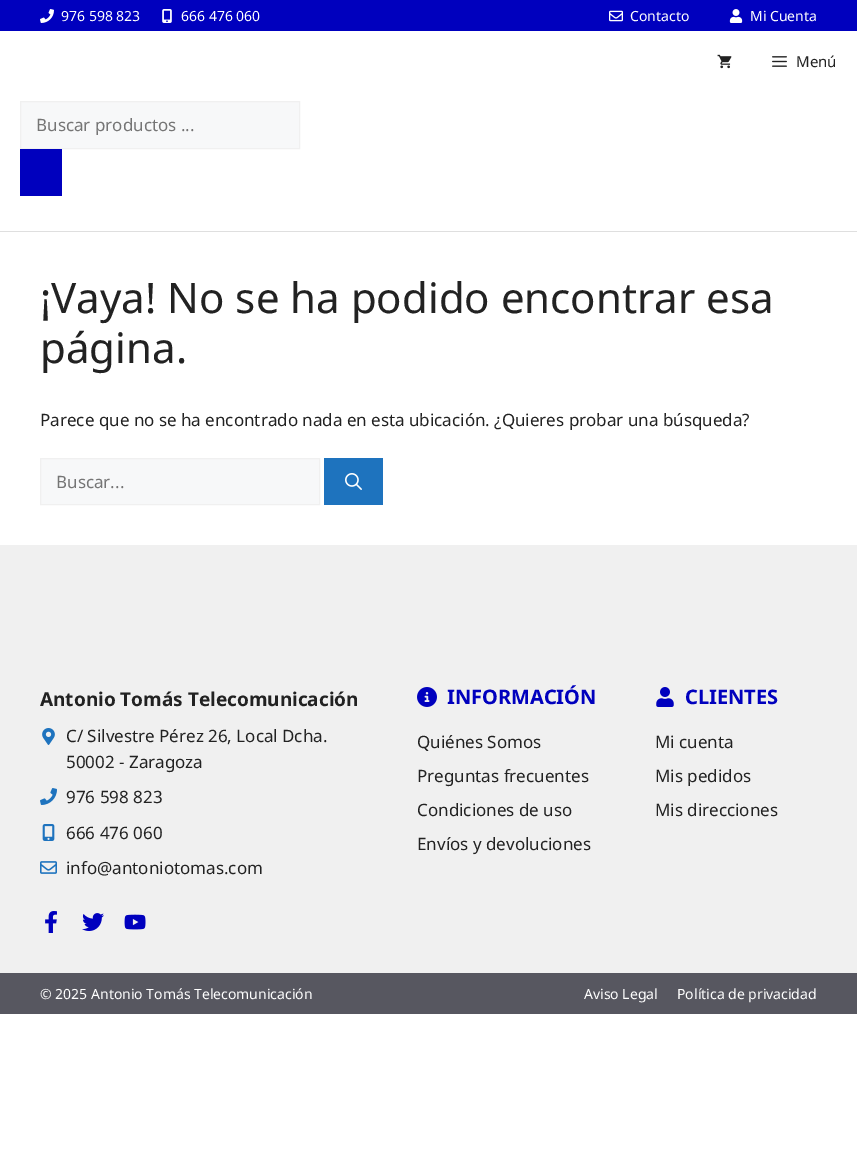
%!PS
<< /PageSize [857 1163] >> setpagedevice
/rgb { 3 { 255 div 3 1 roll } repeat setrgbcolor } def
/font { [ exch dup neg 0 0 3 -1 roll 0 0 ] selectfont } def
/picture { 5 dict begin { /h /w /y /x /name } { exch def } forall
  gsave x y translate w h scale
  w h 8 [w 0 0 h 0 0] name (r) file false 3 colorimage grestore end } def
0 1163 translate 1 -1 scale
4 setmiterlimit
255 255 255 rgb
0 0 857 1163 rectfill
0 0 190 rgb
0 0 857 31 rectfill
(img/1.rgb) 40 9 14 14 picture
(img/2.rgb) 162 9 10 14 picture
(img/3.rgb) 609 10 14 12 picture
(img/4.rgb) 729 9 14 14 picture
223 223 223 rgb
0 231 857 1 rectfill
(img/5.rgb) 717 54 15 15 picture
(img/6.rgb) 772 56 15 11 picture
247 248 249 rgb
20.5 101.5 moveto 299.5 101.5 lineto 299.5 148.5 lineto 20.5 148.5 lineto closepath gsave fill grestore
240 240 240 rgb
stroke
0 0 190 rgb
20 149 42 47 rectfill
247 248 249 rgb
40.5 458.5 moveto 319.5 458.5 lineto 319.5 504.5 lineto 40.5 504.5 lineto closepath gsave fill grestore
240 240 240 rgb
stroke
30 115 190 rgb
324 458 59 47 rectfill
(img/7.rgb) 345 473 17 17 picture
240 240 240 rgb
0 545 857 428 rectfill
(img/8.rgb) 42 728 13 17 picture
(img/9.rgb) 40 788 17 17 picture
(img/10.rgb) 42 824 13 17 picture
(img/11.rgb) 40 861 17 13 picture
(img/12.rgb) 45 911 12 22 picture
(img/13.rgb) 82 913 22 18 picture
(img/14.rgb) 124 914 22 16 picture
(img/15.rgb) 417 687 20 20 picture
(img/16.rgb) 656 687 18 20 picture
87 87 96 rgb
0 973 857 41 rectfill
/NotoSans-Regular 14 font
255 255 255 rgb
[
  [(976 598 823) 61 21]
  [(666 476 060) 181 21]
  [(Contacto) 630 21]
  [(Mi Cuenta) 750 21]
] { aload pop moveto show } forall
/NotoSans-Regular 15 font
34 34 34 rgb
796 67 moveto (Menú) show
/NotoSans-Regular 17 font
117 117 117 rgb
36 131 moveto (Buscar productos ...) show
/NotoSans-Regular 42 font
34 34 34 rgb
40 313 moveto (¡Vaya! No se ha podido encontrar esa) show
40 363 moveto (página.) show
/NotoSans-Regular 17 font
40 426 moveto (Parece que no se ha encontrado nada en esta ubicación. ¿Quieres probar una búsqueda?) show
117 117 117 rgb
56 488 moveto (Buscar...) show
/NotoSans-Bold 19 font
34 34 34 rgb
40 706 moveto (Antonio Tomás Telecomunicación) show
/NotoSans-Regular 17 font
[
  [(C/ Silvestre Pérez 26, Local Dcha.) 66 742]
  [(50002 - Zaragoza) 66 768]
  [(976 598 823) 66 803]
  [(666 476 060) 66 839]
  [(info@antoniotomas.com) 66 874]
] { aload pop moveto show } forall
/NotoSans-Bold 20 font
0 0 190 rgb
447 704 moveto (INFORMACIÓN) show
/NotoSans-Regular 17 font
34 34 34 rgb
[
  [(Quiénes Somos) 417 748]
  [(Preguntas frecuentes) 417 782]
  [(Condiciones de uso) 417 816]
  [(Envíos y devoluciones) 417 850]
] { aload pop moveto show } forall
/NotoSans-Bold 20 font
0 0 190 rgb
685 704 moveto (CLIENTES) show
/NotoSans-Regular 17 font
34 34 34 rgb
[
  [(Mi cuenta) 655 748]
  [(Mis pedidos) 655 782]
  [(Mis direcciones) 655 816]
] { aload pop moveto show } forall
/NotoSans-Regular 14 font
255 255 255 rgb
[
  [(© 2025 Antonio Tomás Telecomunicación) 40 999]
  [(Aviso Legal) 584 999]
  [(Política de privacidad) 677 999]
] { aload pop moveto show } forall
showpage
